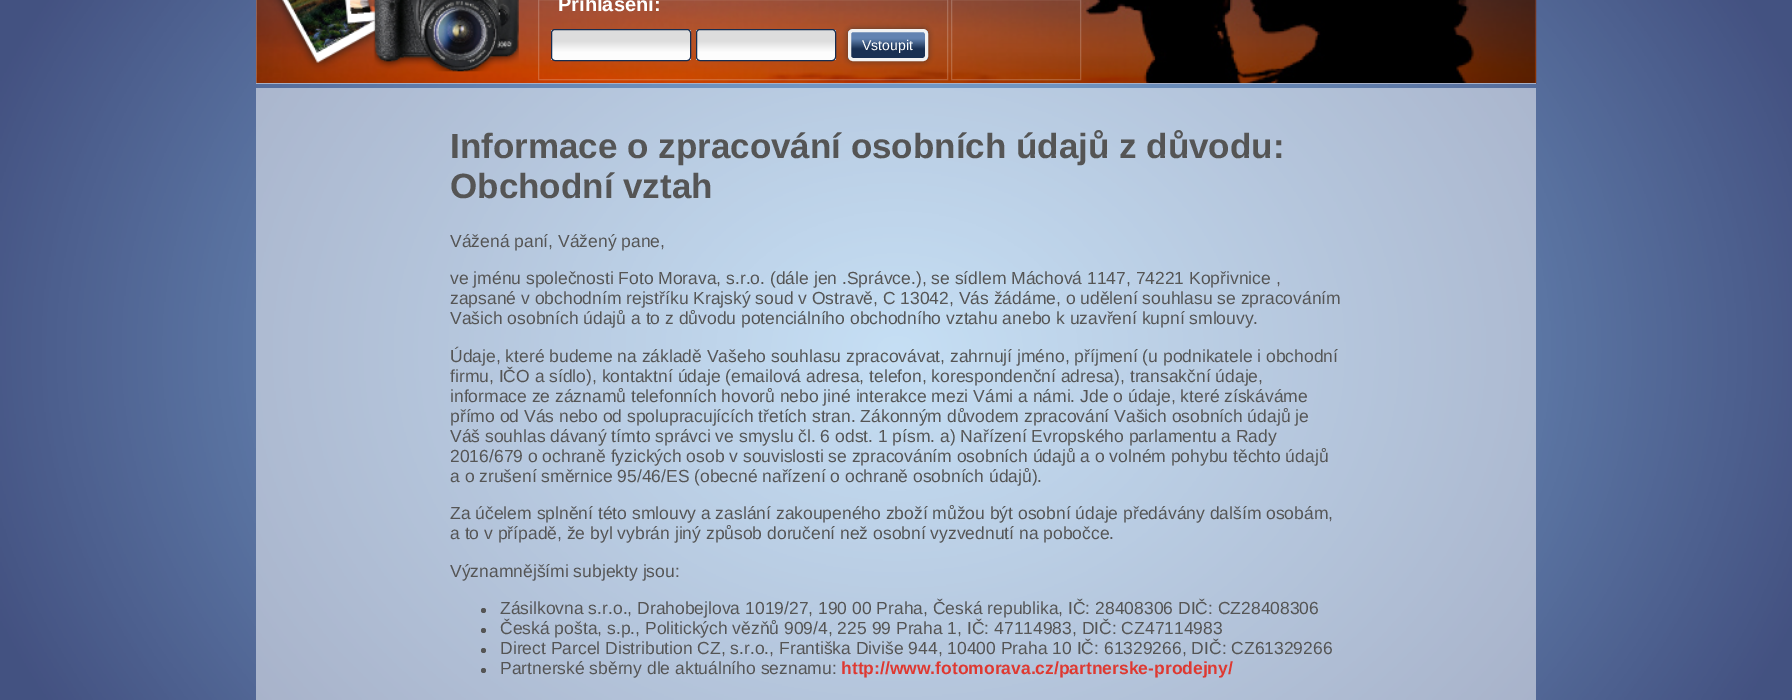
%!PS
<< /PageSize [1792 700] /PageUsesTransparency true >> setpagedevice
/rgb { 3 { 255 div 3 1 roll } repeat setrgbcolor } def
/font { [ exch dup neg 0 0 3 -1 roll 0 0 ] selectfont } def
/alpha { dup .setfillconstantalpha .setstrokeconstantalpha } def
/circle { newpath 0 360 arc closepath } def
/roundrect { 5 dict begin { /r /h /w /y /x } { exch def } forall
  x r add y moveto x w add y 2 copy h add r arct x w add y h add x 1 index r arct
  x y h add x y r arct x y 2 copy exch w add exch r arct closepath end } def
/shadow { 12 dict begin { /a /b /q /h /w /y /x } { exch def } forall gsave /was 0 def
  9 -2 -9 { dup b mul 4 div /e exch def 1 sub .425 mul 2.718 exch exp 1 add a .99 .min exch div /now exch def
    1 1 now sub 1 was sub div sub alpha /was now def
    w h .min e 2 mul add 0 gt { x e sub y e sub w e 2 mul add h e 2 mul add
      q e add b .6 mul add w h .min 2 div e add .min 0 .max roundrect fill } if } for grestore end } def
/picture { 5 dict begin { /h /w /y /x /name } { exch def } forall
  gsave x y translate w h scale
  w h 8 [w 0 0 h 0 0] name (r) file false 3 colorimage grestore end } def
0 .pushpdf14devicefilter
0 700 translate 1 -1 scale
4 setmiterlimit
255 255 255 rgb
0 0 1792 700 rectfill
(img/1.rgb) 0 0 1792 700 picture
(img/2.rgb) 256 0 1281 84 picture
167 177 200 rgb
256 83 1280 1 rectfill
0.2 alpha
255 255 255 rgb
538.5 -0.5 409 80 rectstroke
gsave
551 29 140 32 4 roundrect clip newpath
1 alpha
gsave 551 30 moveto 691 30 lineto 691 60 lineto 551 60 lineto closepath clip newpath
<< /ShadingType 2 /ColorSpace /DeviceRGB /Coords [553 60 553 30] /Extend [true true] /Function << /FunctionType 3 /Domain [0 1] /Functions [<< /FunctionType 2 /Domain [0 1] /C0 [0.992 0.992 0.992] /C1 [0.992 0.992 0.992] /N 1 >> << /FunctionType 2 /Domain [0 1] /C0 [0.992 0.992 0.992] /C1 [0.867 0.867 0.867] /N 1 >> << /FunctionType 2 /Domain [0 1] /C0 [0.867 0.867 0.867] /C1 [0.867 0.867 0.867] /N 1 >>] /Bounds [0.27 0.64] /Encode [0 1 0 1 0 1] >> >> shfill grestore
grestore
1 alpha
22 45 80 rgb
551.5 29.5 139 31 3.5 roundrect stroke
gsave
696 29 140 32 4 roundrect clip newpath
gsave 696 30 moveto 836 30 lineto 836 60 lineto 696 60 lineto closepath clip newpath
<< /ShadingType 2 /ColorSpace /DeviceRGB /Coords [698 60 698 30] /Extend [true true] /Function << /FunctionType 3 /Domain [0 1] /Functions [<< /FunctionType 2 /Domain [0 1] /C0 [0.992 0.992 0.992] /C1 [0.992 0.992 0.992] /N 1 >> << /FunctionType 2 /Domain [0 1] /C0 [0.992 0.992 0.992] /C1 [0.867 0.867 0.867] /N 1 >> << /FunctionType 2 /Domain [0 1] /C0 [0.867 0.867 0.867] /C1 [0.867 0.867 0.867] /N 1 >>] /Bounds [0.27 0.64] /Encode [0 1 0 1 0 1] >> >> shfill grestore
grestore
696.5 29.5 139 31 3.5 roundrect stroke
50 50 50 rgb
848 29 80 32 5 3 0.75 shadow
gsave
848 29 80 32 5 roundrect clip newpath
gsave 848 31 moveto 928 31 lineto 928 59 lineto 848 59 lineto closepath clip newpath
<< /ShadingType 2 /ColorSpace /DeviceRGB /Coords [850 31 850 59] /Extend [true true] /Function << /FunctionType 3 /Domain [0 1] /Functions [<< /FunctionType 2 /Domain [0 1] /C0 [0.388 0.514 0.694] /C1 [0.388 0.514 0.694] /N 1 >> << /FunctionType 2 /Domain [0 1] /C0 [0.388 0.514 0.694] /C1 [0.098 0.188 0.325] /N 1 >> << /FunctionType 2 /Domain [0 1] /C0 [0.098 0.188 0.325] /C1 [0.098 0.188 0.325] /N 1 >>] /Bounds [0.27 0.64] /Encode [0 1 0 1 0 1] >> >> shfill grestore
grestore
242 242 242 rgb
3 setlinewidth
849.5 30.5 77 29 3.5 roundrect stroke
0.2 alpha
255 255 255 rgb
1 setlinewidth
951.5 -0.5 129 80 rectstroke
0.5 alpha
256 88 1280 612 rectfill
1 alpha
85 85 85 rgb
483.5 610.5 2.5 circle fill
483.5 630.5 2.5 circle fill
483.5 650.5 2.5 circle fill
483.5 670.5 2.5 circle fill
/LiberationSans-Bold 20 font
255 255 255 rgb
558 11 moveto (Přihlášení:) show
/LiberationSans-Regular 14 font
862 50 moveto (Vstoupit) show
/LiberationSans-Bold 35 font
85 85 85 rgb
450 158 moveto (Informace o zpracování osobních údajů z důvodu:) show
450 198 moveto (Obchodní vztah) show
/LiberationSans-Regular 17.5 font
[
  [(Vážená paní, Vážený pane,) 450 247]
  [(ve jménu společnosti Foto Morava, s.r.o. \(dále jen .Správce.\), se sídlem Máchová 1147, 74221 Kopřivnice ,) 450 284]
  [(zapsané v obchodním rejstříku Krajský soud v Ostravě, C 13042, Vás žádáme, o udělení souhlasu se zpracováním) 450 304]
  [(Vašich osobních údajů a to z důvodu potenciálního obchodního vztahu anebo k uzavření kupní smlouvy.) 450 324]
  [(Údaje, které budeme na základě Vašeho souhlasu zpracovávat, zahrnují jméno, příjmení \(u podnikatele i obchodní) 450 362]
  [(firmu, IČO a sídlo\), kontaktní údaje \(emailová adresa, telefon, korespondenční adresa\), transakční údaje,) 450 382]
  [(informace ze záznamů telefonních hovorů nebo jiné interakce mezi Vámi a námi. Jde o údaje, které získáváme) 450 402]
  [(přímo od Vás nebo od spolupracujících třetích stran. Zákonným důvodem zpracování Vašich osobních údajů je) 450 422]
  [(Váš souhlas dávaný tímto správci ve smyslu čl. 6 odst. 1 písm. a\) Nařízení Evropského parlamentu a Rady) 450 442]
  [(2016/679 o ochraně fyzických osob v souvislosti se zpracováním osobních údajů a o volném pohybu těchto údajů) 450 462]
  [(a o zrušení směrnice 95/46/ES \(obecné nařízení o ochraně osobních údajů\).) 450 482]
  [(Za účelem splnění této smlouvy a zaslání zakoupeného zboží můžou být osobní údaje předávány dalším osobám,) 450 519]
  [(a to v případě, že byl vybrán jiný způsob doručení než osobní vyzvednutí na pobočce.) 450 539]
  [(Významnějšími subjekty jsou:) 450 577]
  [(Zásilkovna s.r.o., Drahobejlova 1019/27, 190 00 Praha, Česká republika, IČ: 28408306 DIČ: CZ28408306) 500 614]
  [(Česká pošta, s.p., Politických vězňů 909/4, 225 99 Praha 1, IČ: 47114983, DIČ: CZ47114983) 500 634]
  [(Direct Parcel Distribution CZ, s.r.o., Františka Diviše 944, 10400 Praha 10 IČ: 61329266, DIČ: CZ61329266) 500 654]
  [(Partnerské sběrny dle aktuálního seznamu:) 500 674]
] { aload pop moveto show } forall
/LiberationSans-Bold 17.5 font
222 57 49 rgb
841 674 moveto (http://www.fotomorava.cz/partnerske-prodejny/) show
.poppdf14devicefilter showpage
